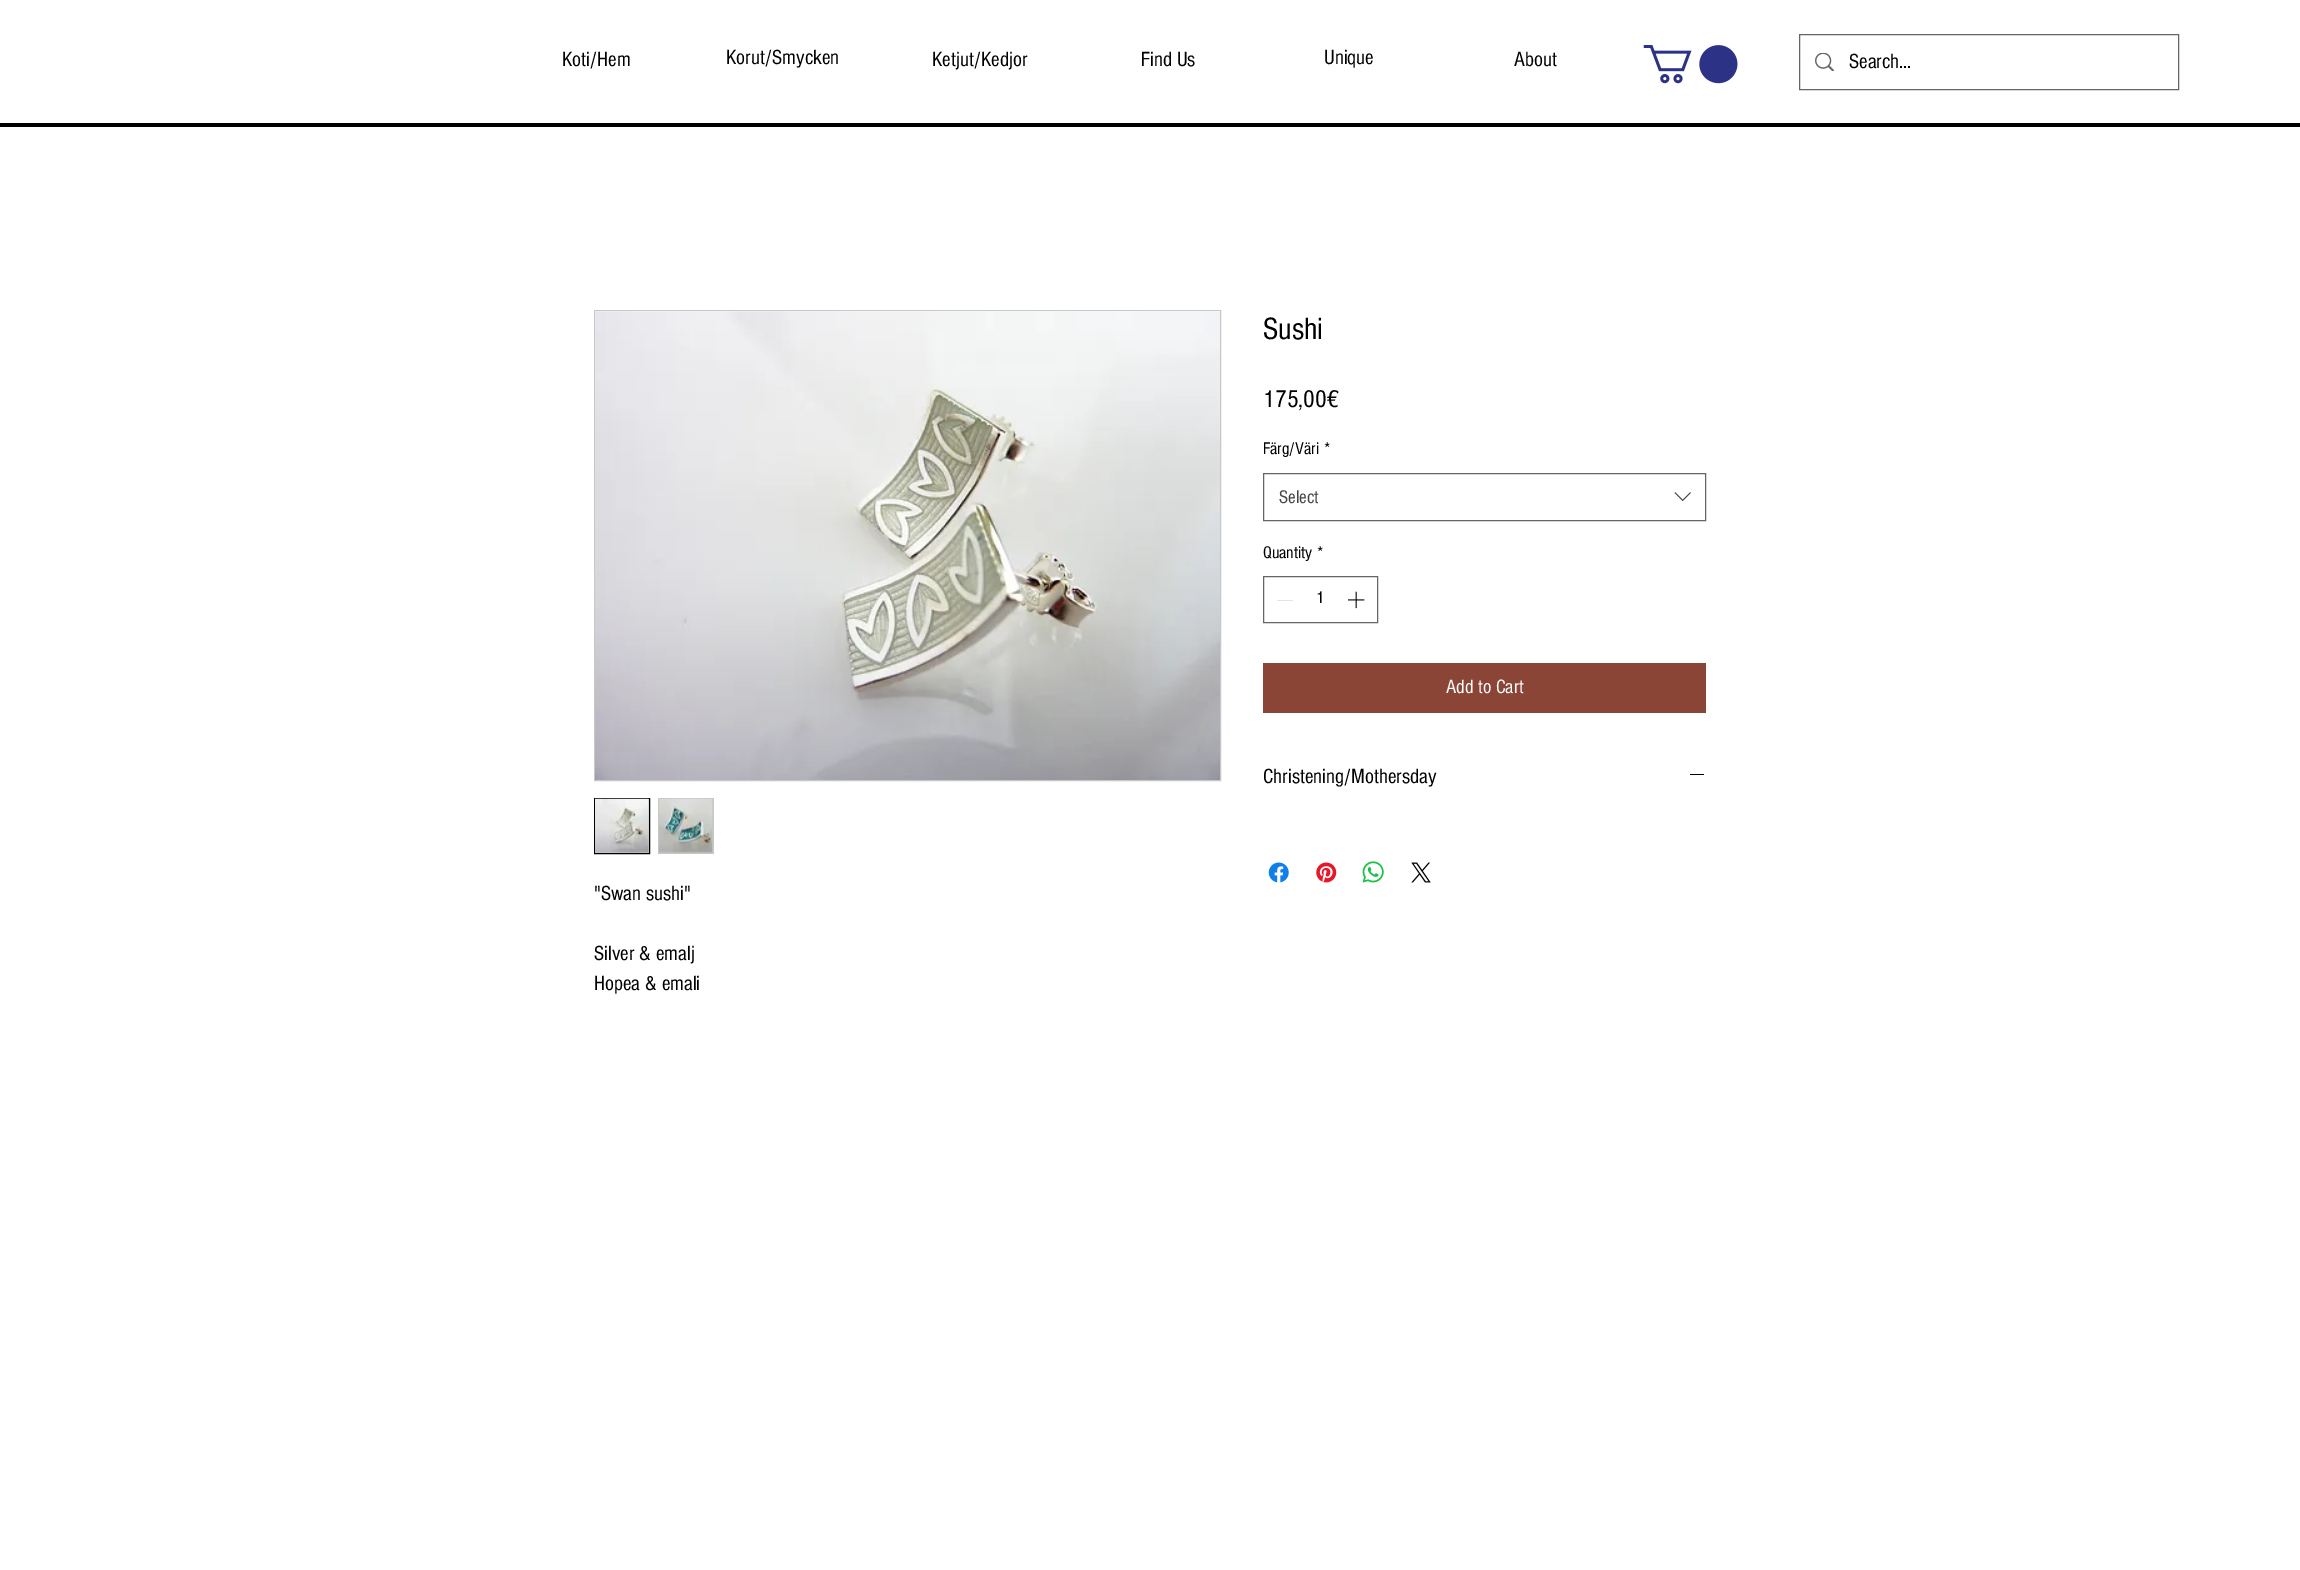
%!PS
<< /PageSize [2300 1570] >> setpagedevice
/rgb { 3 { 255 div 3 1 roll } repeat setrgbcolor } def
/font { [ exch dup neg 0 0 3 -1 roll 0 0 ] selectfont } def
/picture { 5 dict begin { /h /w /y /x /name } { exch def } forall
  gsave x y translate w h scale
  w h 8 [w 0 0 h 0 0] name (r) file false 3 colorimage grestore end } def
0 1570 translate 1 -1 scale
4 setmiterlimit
255 255 255 rgb
0 0 2300 1570 rectfill
(img/1.rgb) 1643 45 95 39 picture
102 102 102 rgb
1799.5 34.5 379 55 rectstroke
(img/2.rgb) 1815 53 19 18 picture
0 0 0 rgb
0 123 2300 4 rectfill
102 102 102 rgb
1263.5 473.5 442 47 rectstroke
(img/3.rgb) 1674 492 17 10 picture
1263.5 576.5 114 46 rectstroke
227 227 227 rgb
1277 600 16 1 rectfill
(img/4.rgb) 1348 591 17 18 picture
138 69 55 rgb
1263 663 443 50 rectfill
0 0 0 rgb
1690 774 14 1 rectfill
(img/5.rgb) 1268 862 21 21 picture
(img/6.rgb) 1316 862 21 21 picture
(img/7.rgb) 1362 861 22 22 picture
(img/8.rgb) 1411 862 20 21 picture
199 199 199 rgb
594.5 310.5 626 470 rectstroke
(img/9.rgb) 595 311 625 469 picture
594.5 798.5 moveto 649.5 798.5 lineto 649.5 853.5 lineto 594.5 853.5 lineto closepath gsave fill grestore
0 0 0 rgb
stroke
(img/10.rgb) 595 798 54 55 picture
199 199 199 rgb
658 798 56 56 rectfill
(img/11.rgb) 659 798 54 55 picture
/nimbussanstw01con-Regular 21.25 font
0 0 0 rgb
[
  [(Koti/Hem) 562 66]
  [(Korut/Smycken) 726 64]
  [(Ketjut/Kedjor) 932 66]
  [(Find Us) 1141 66]
  [(Unique) 1324 64]
  [(About) 1514 66]
  [(Search...) 1849 68]
] { aload pop moveto show } forall
/nimbussanstw01con-Regular 32 font
1263 339 moveto (Sushi) show
/nimbussanstw01con-Regular 25 font
1263 407 moveto (175,00€) show
/nimbussanstw01con-Regular 17.5 font
1263 454 moveto (Färg/Väri) show
1324 454 moveto (*) show
/nimbussanstw01con-Regular 19 font
68 68 68 rgb
1279 503 moveto (Select) show
/nimbussanstw01con-Regular 17.5 font
0 0 0 rgb
[
  [(Quantity) 1263 558]
  [(*) 1317 558]
  [(1) 1316 603]
] { aload pop moveto show } forall
/nimbussanstw01con-Regular 20 font
255 255 255 rgb
1446 693 moveto (Add to Cart) show
/nimbussanstw01con-Regular 21.25 font
0 0 0 rgb
[
  [(Christening/Mothersday) 1263 783]
  [("Swan sushi") 594 900]
  [(Silver & emalj) 594 960]
  [(Hopea & emali) 594 990]
] { aload pop moveto show } forall
showpage
